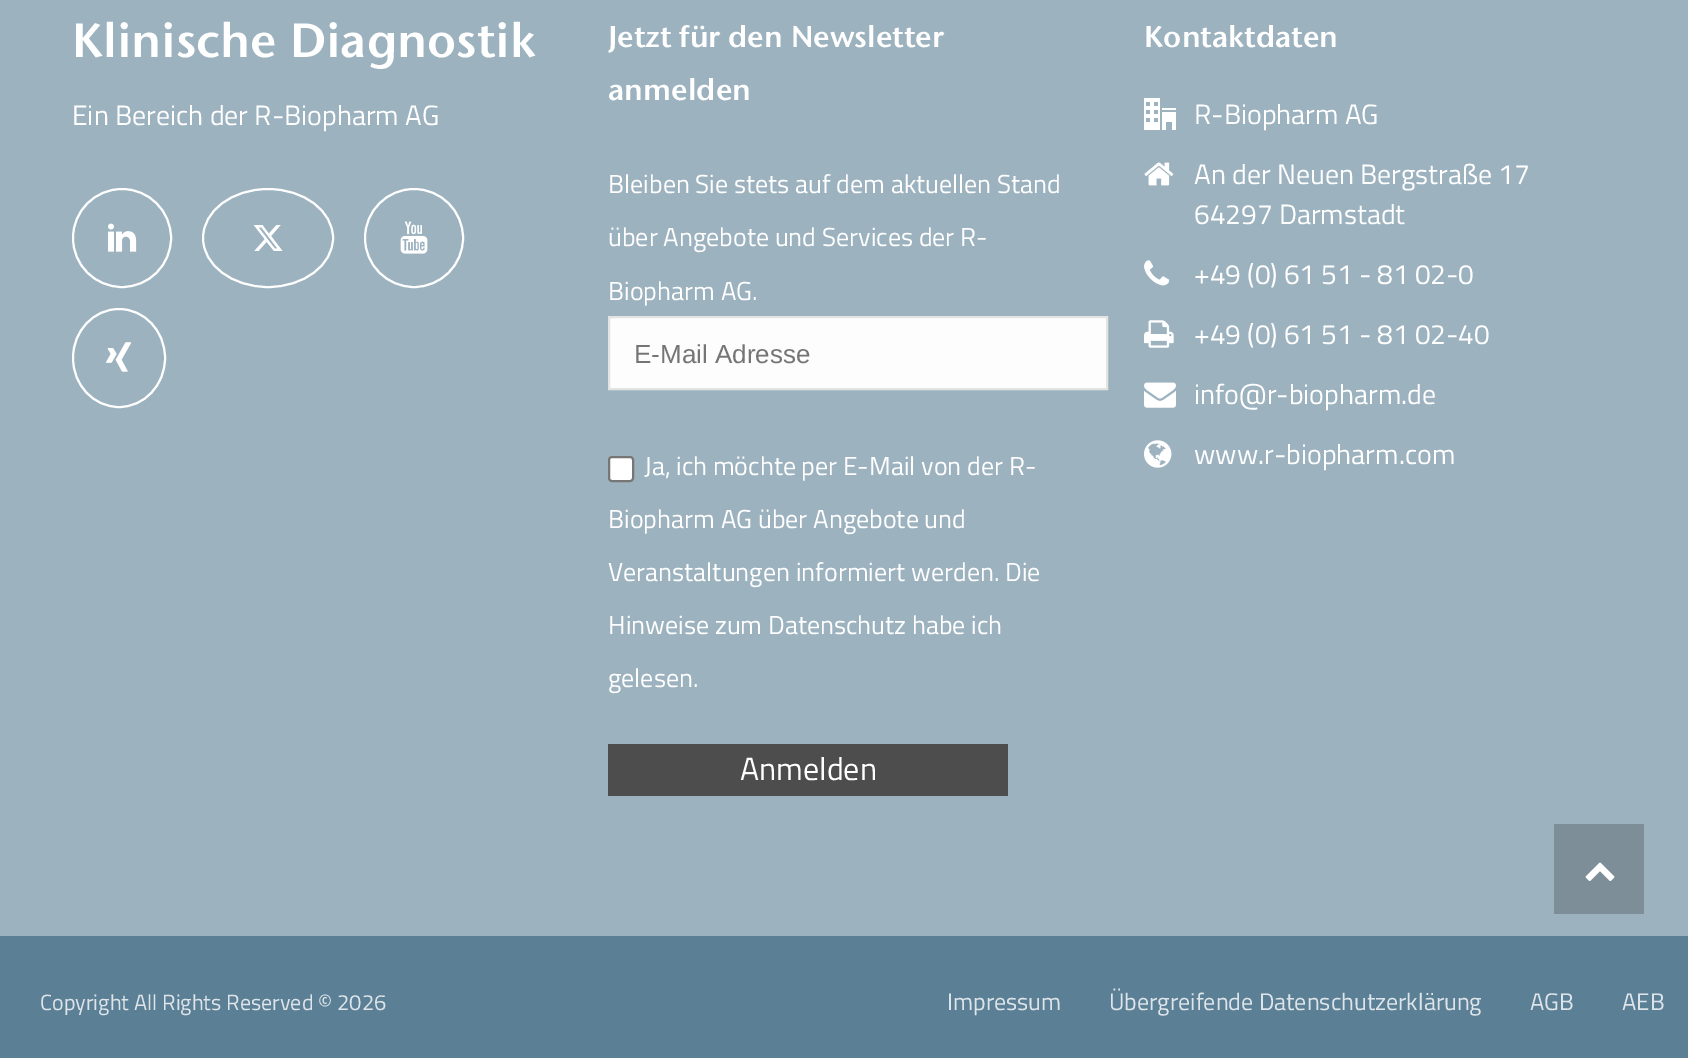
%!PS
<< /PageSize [1688 1058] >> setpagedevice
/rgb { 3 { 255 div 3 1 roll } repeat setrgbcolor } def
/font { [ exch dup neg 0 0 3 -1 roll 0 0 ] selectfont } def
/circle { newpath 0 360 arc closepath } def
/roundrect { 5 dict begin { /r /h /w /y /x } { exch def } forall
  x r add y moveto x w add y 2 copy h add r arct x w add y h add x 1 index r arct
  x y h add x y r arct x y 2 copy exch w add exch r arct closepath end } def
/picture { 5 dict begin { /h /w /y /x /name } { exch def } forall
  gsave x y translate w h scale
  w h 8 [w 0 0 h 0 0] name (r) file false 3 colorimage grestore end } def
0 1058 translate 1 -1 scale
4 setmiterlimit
156 178 191 rgb
0 0 1688 1058 rectfill
255 255 255 rgb
2 setlinewidth
122 238 49 circle stroke
(img/1.rgb) 108 223 29 29 picture
268 189 moveto 304 189 333 211 333 238 curveto 333 265 304 287 268 287 curveto 232 287 203 265 203 238 curveto 203 211 232 189 268 189 curveto closepath stroke
(img/2.rgb) 253 225 30 26 picture
414 238 49 circle stroke
(img/3.rgb) 400 221 28 33 picture
119 309 moveto 144.5 309 165 331 165 358 curveto 165 385 144.5 407 119 407 curveto 93.5 407 73 385 73 358 curveto 73 331 93.5 309 119 309 curveto closepath stroke
(img/4.rgb) 106 342 26 30 picture
253 253 253 rgb
609 317 moveto 1107 317 lineto 1107 389 lineto 609 389 lineto closepath gsave fill grestore
227 227 227 rgb
stroke
255 255 255 rgb
609 457 24 24 3 roundrect gsave fill grestore
118 118 118 rgb
stroke
77 77 77 rgb
608 744 400 52 rectfill
(img/5.rgb) 1144 98 32 32 picture
(img/6.rgb) 1144 162 30 24 picture
(img/7.rgb) 1144 260 26 26 picture
(img/8.rgb) 1144 320 30 28 picture
(img/9.rgb) 1144 382 32 26 picture
(img/10.rgb) 1144 440 28 28 picture
91 127 149 rgb
0 936 1688 122 rectfill
125 142 153 rgb
1554 824 90 90 rectfill
(img/11.rgb) 1585 862 30 19 picture
/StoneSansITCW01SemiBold-SemiBold 48 font
255 255 255 rgb
72 57 moveto (Klinische Diagnostik) show
/TitilliumWeb-Regular 28 font
72 125 moveto (Ein Bereich der R-Biopharm AG) show
/StoneSansITCW01SemiBold-SemiBold 30 font
608 47 moveto (Jetzt für den Newsletter) show
608 100 moveto (anmelden) show
/TitilliumWeb-Regular 26 font
[
  [(Bleiben Sie stets auf dem aktuellen Stand) 608 193]
  [(über Angebote und Services der R-) 608 246]
  [(Biopharm AG.) 608 300]
] { aload pop moveto show } forall
/LiberationSans-Regular 26 font
117 117 117 rgb
634 363 moveto (E-Mail Adresse) show
/TitilliumWeb-Regular 26 font
255 255 255 rgb
[
  [(Ja, ich möchte per E-Mail von der R-) 644 475]
  [(Biopharm AG über Angebote und) 608 528]
  [(Veranstaltungen informiert werden. Die) 608 581]
  [(Hinweise zum Datenschutz habe ich) 608 634]
  [(gelesen.) 608 687]
] { aload pop moveto show } forall
/TitilliumWeb-Regular 32 font
740 780 moveto (Anmelden) show
/StoneSansITCW01SemiBold-SemiBold 30 font
1144 47 moveto (Kontaktdaten) show
/TitilliumWeb-Regular 28 font
[
  [(R-Biopharm AG) 1194 124]
  [(An der Neuen Bergstraße 17) 1194 184]
  [(64297 Darmstadt) 1194 224]
  [(+49 \(0\) 61 51 - 81 02-0) 1194 284]
  [(+49 \(0\) 61 51 - 81 02-40) 1194 344]
  [(info@r-biopharm.de) 1194 404]
  [(www.r-biopharm.com) 1194 464]
] { aload pop moveto show } forall
/TitilliumWeb-Regular 22 font
222 229 234 rgb
40 1010 moveto (Copyright All Rights Reserved © 2026) show
/TitilliumWeb-Regular 24 font
[
  [(Impressum) 947 1010]
  [(Übergreifende Datenschutzerklärung) 1109 1010]
  [(AGB) 1530 1010]
  [(AEB) 1622 1010]
] { aload pop moveto show } forall
showpage
